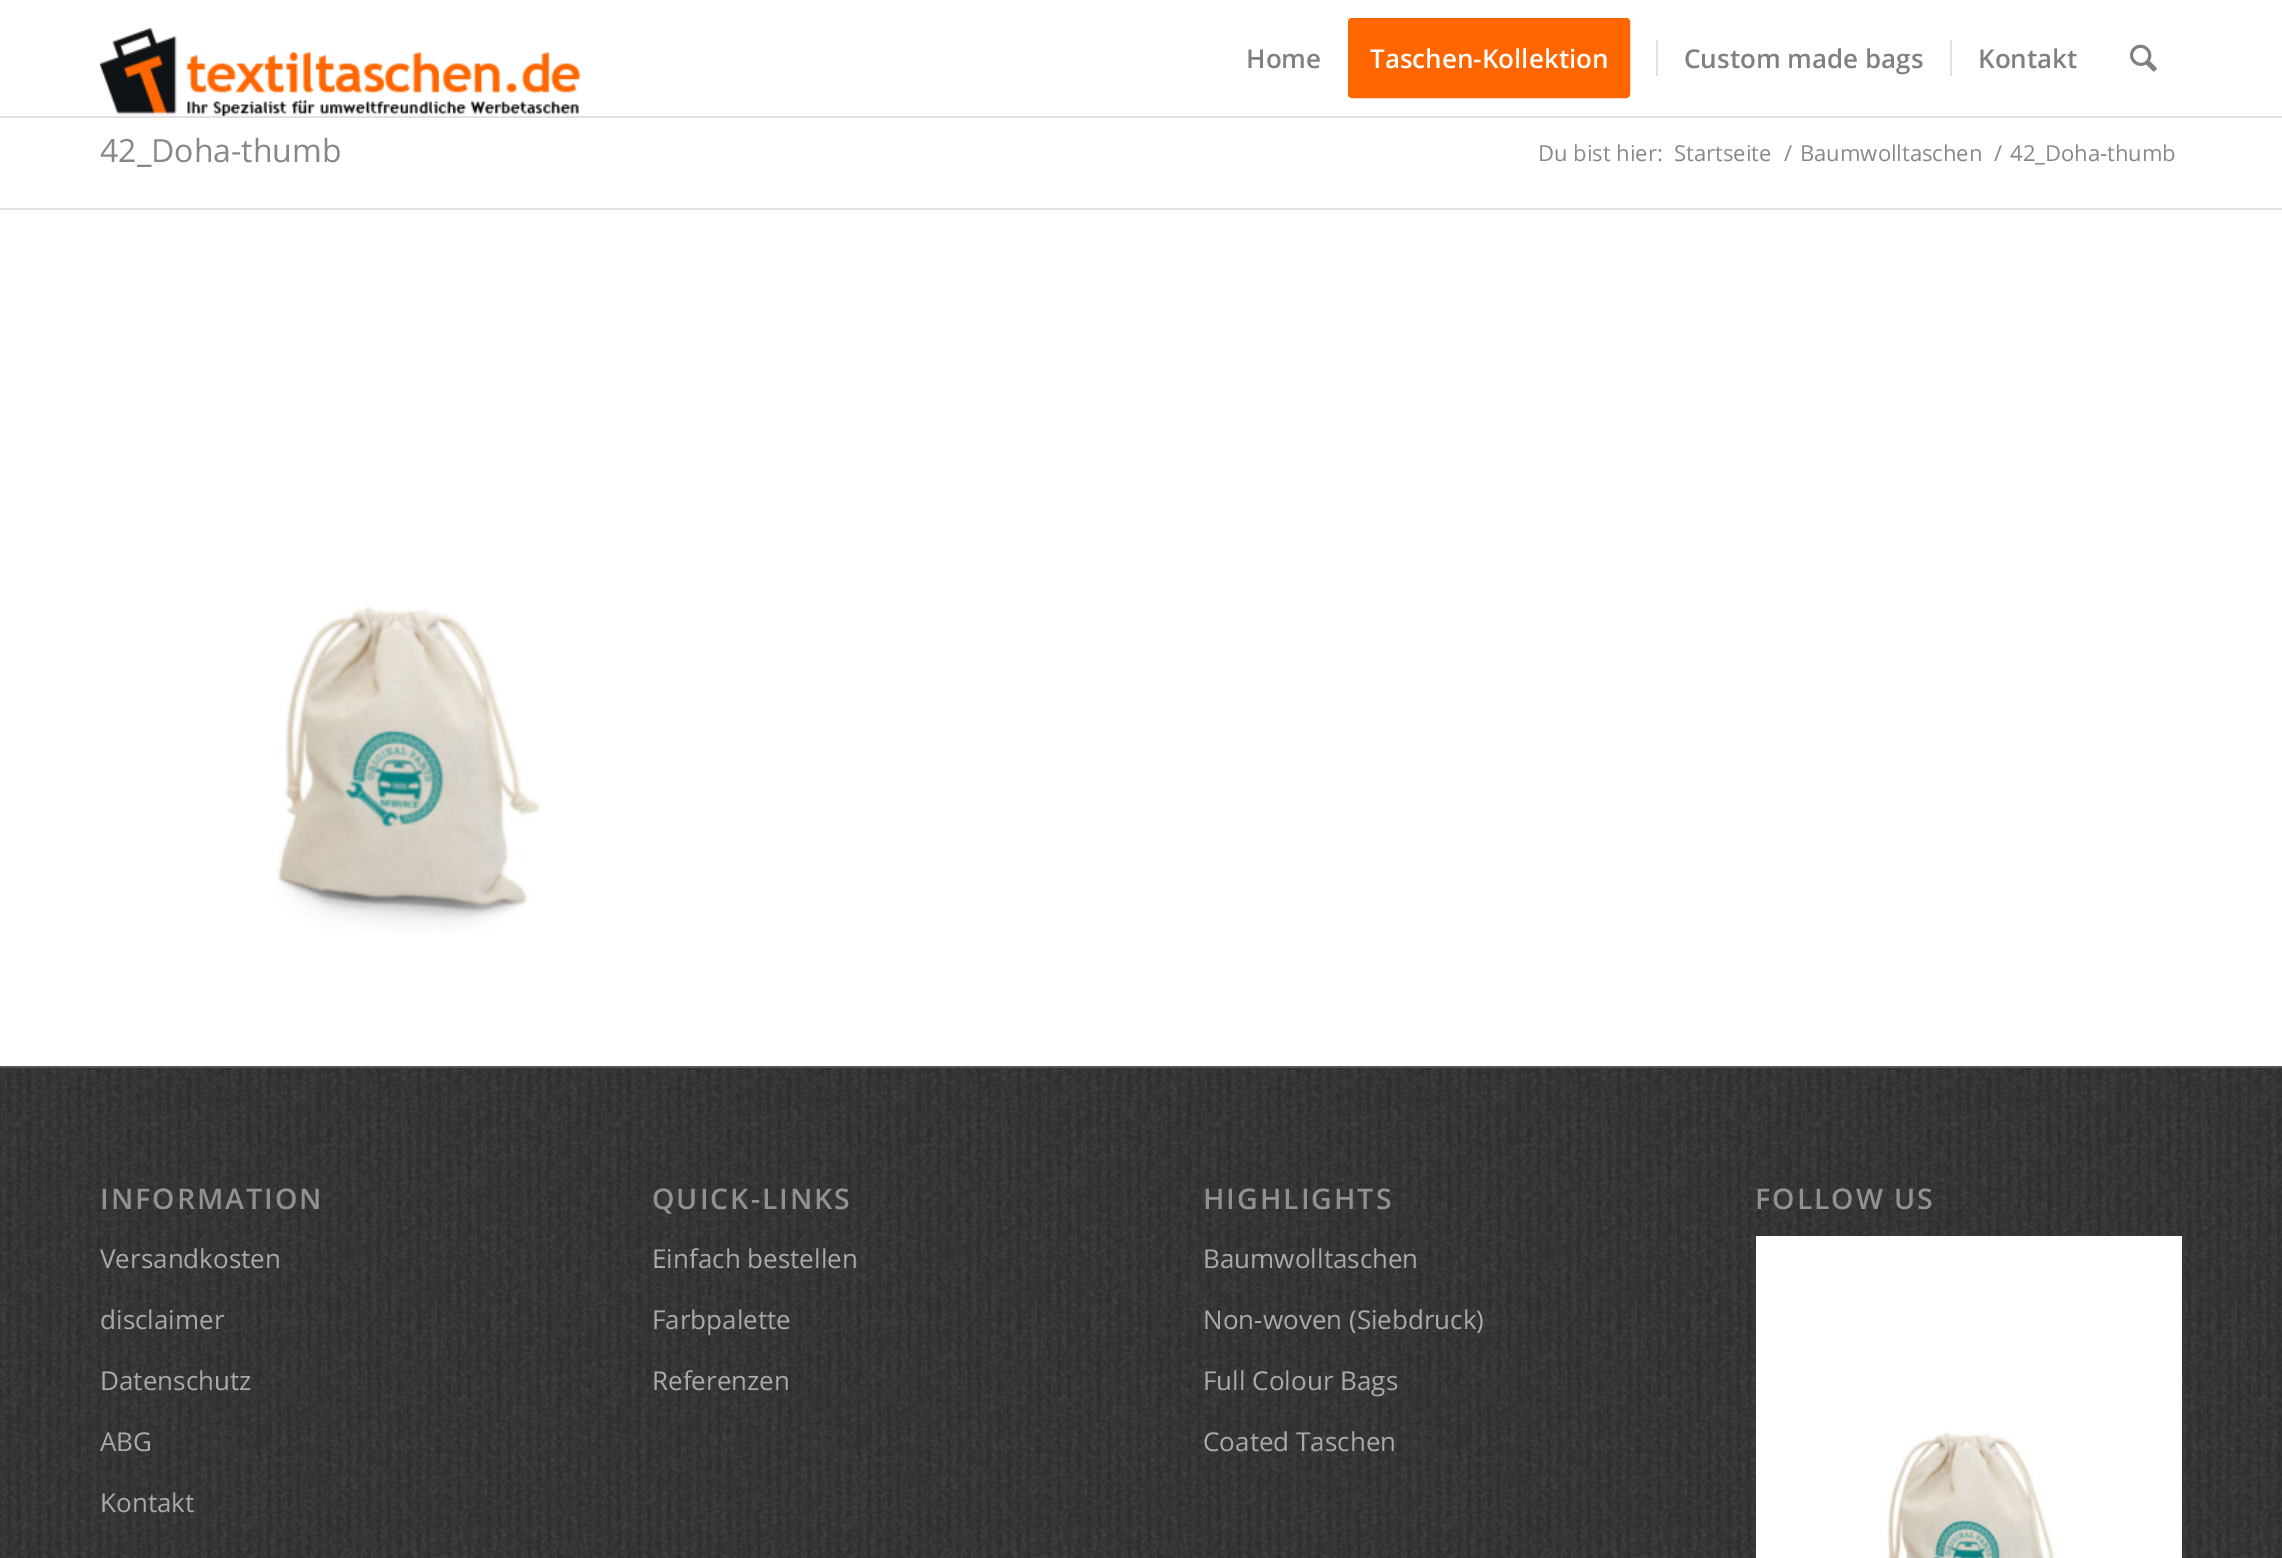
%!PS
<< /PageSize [2282 1558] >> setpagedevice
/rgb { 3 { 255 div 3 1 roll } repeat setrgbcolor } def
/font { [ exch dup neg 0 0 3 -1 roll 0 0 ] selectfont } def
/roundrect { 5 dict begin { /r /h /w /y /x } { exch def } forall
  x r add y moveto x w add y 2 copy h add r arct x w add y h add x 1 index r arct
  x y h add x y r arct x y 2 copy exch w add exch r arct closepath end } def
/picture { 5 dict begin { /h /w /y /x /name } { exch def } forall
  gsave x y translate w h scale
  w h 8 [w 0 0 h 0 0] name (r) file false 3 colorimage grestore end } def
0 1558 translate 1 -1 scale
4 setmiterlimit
255 255 255 rgb
0 0 2282 1558 rectfill
225 225 225 rgb
0 116 2282 2 rectfill
(img/1.rgb) 100 28 480 88 picture
255 102 0 rgb
1350 20 278 76 2 roundrect gsave fill grestore
4 setlinewidth
stroke
225 225 225 rgb
1656 40 2 36 rectfill
1950 40 2 36 rectfill
(img/2.rgb) 2130 44 27 28 picture
0 208 2282 2 rectfill
(img/3.rgb) 277 605 264 327 picture
51 51 51 rgb
0 1068 2282 490 rectfill
(img/4.rgb) 0 1068 2282 490 picture
85 85 85 rgb
0 1066 2282 2 rectfill
(img/5.rgb) 1756 1236 426 322 picture
/OpenSans-SemiBold 26 font
128 128 128 rgb
1246 68 moveto (Home) show
255 255 255 rgb
1370 68 moveto (Taschen-Kollektion) show
128 128 128 rgb
1684 68 moveto (Custom made bags) show
1978 68 moveto (Kontakt) show
/OpenSans-Regular 32 font
136 136 136 rgb
100 162 moveto (42_Doha-thumb) show
/OpenSans-Regular 22 font
[
  [(Du bist hier:) 1538 161]
  [(Startseite) 1674 161]
  [(/) 1784 161]
  [(Baumwolltaschen) 1800 161]
  [(/) 1994 161]
  [(42_Doha-thumb) 2010 161]
] { aload pop moveto show } forall
/OpenSans-SemiBold 28.5 font
145 145 145 rgb
100 1209 moveto 2 0 (INFORMATION) ashow
/OpenSans-Regular 26 font
170 170 170 rgb
[
  [(Versandkosten) 100 1268]
  [(disclaimer) 100 1329]
  [(Datenschutz) 100 1390]
  [(ABG) 100 1451]
  [(Kontakt) 100 1512]
] { aload pop moveto show } forall
/OpenSans-SemiBold 28.5 font
145 145 145 rgb
652 1209 moveto 2 0 (QUICK-LINKS) ashow
/OpenSans-Regular 26 font
170 170 170 rgb
[
  [(Einfach bestellen) 652 1268]
  [(Farbpalette) 652 1329]
  [(Referenzen) 652 1390]
] { aload pop moveto show } forall
/OpenSans-SemiBold 28.5 font
145 145 145 rgb
1203 1209 moveto 2 0 (HIGHLIGHTS) ashow
/OpenSans-Regular 26 font
170 170 170 rgb
[
  [(Baumwolltaschen) 1203 1268]
  [(Non-woven \(Siebdruck\)) 1203 1329]
  [(Full Colour Bags) 1203 1390]
  [(Coated Taschen) 1203 1451]
] { aload pop moveto show } forall
/OpenSans-SemiBold 28.5 font
145 145 145 rgb
1755 1209 moveto 2 0 (FOLLOW US) ashow
showpage
